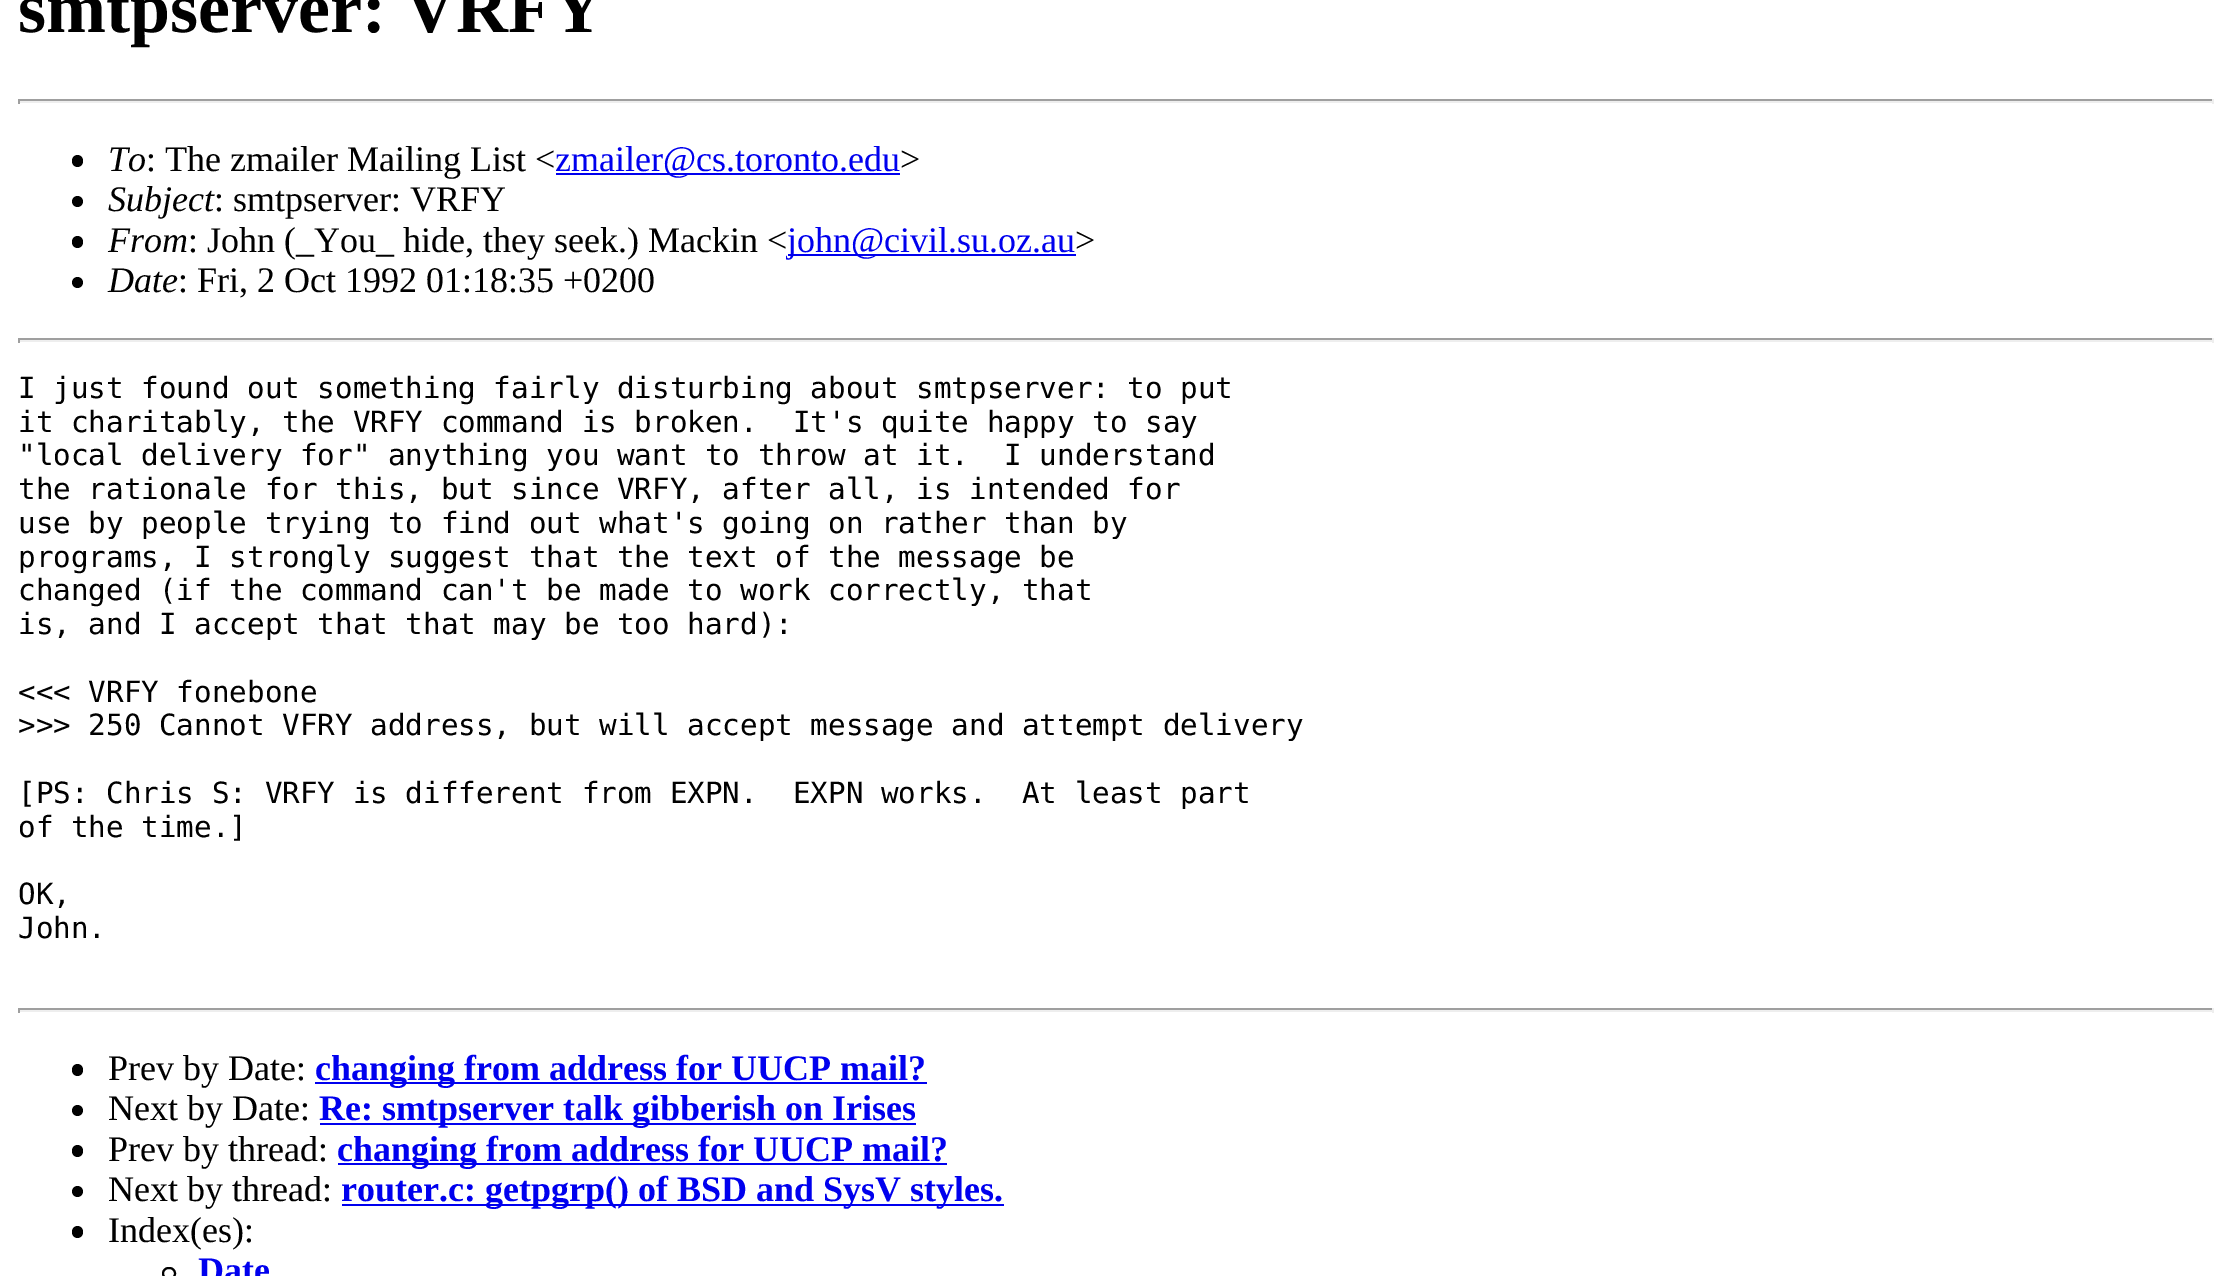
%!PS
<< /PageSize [2231 1276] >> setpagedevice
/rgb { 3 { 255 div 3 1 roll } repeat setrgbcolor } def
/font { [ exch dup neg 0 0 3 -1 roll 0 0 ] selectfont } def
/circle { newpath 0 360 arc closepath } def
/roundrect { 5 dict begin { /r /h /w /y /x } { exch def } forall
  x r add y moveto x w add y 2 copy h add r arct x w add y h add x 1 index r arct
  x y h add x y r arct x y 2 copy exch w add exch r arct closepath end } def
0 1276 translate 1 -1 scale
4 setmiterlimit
255 255 255 rgb
0 0 2231 1276 rectfill
[
  [18 99 2196 2 159 159 159]
  [2212 99 2 5 238 238 238]
  [18 101 2196 2 238 238 238]
  [18 99 2 5 159 159 159]
] { aload pop rgb rectfill } forall
0 0 0 rgb
72 155 11 12 5.5 roundrect fill
0 0 238 rgb
556 173 344 2 rectfill
0 0 0 rgb
77.5 201.5 5.5 circle fill
72 236 11 12 5.5 roundrect fill
0 0 238 rgb
788 254 288 2 rectfill
0 0 0 rgb
77.5 282.5 5.5 circle fill
[
  [18 338 2196 2 159 159 159]
  [2212 338 2 5 238 238 238]
  [18 340 2196 2 238 238 238]
  [18 338 2 5 159 159 159]
  [18 1008 2196 2 159 159 159]
  [2212 1008 2 5 238 238 238]
  [18 1010 2196 2 238 238 238]
  [18 1008 2 5 159 159 159]
] { aload pop rgb rectfill } forall
0 0 0 rgb
72 1064 11 12 5.5 roundrect fill
0 0 238 rgb
315 1082 612 2 rectfill
0 0 0 rgb
77.5 1110.5 5.5 circle fill
0 0 238 rgb
320 1123 596 2 rectfill
0 0 0 rgb
72 1145 11 12 5.5 roundrect fill
0 0 238 rgb
338 1163 609 2 rectfill
0 0 0 rgb
77.5 1191.5 5.5 circle fill
0 0 238 rgb
342 1204 662 2 rectfill
0 0 0 rgb
72 1226 11 12 5.5 roundrect fill
2 setlinewidth
163 1268 12 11 5.5 roundrect stroke
/LiberationSerif-Bold 72 font
18 32 moveto (smtpserver: VRFY) show
/LiberationSerif-Italic 36 font
108 171 moveto (To) show
/LiberationSerif-Regular 36 font
146 171 moveto (: The zmailer Mailing List <) show
0 0 238 rgb
555 171 moveto (zmailer@cs.toronto.edu) show
0 0 0 rgb
900 171 moveto (>) show
/LiberationSerif-Italic 36 font
108 211 moveto (Subject) show
/LiberationSerif-Regular 36 font
214 211 moveto (: smtpserver: VRFY) show
/LiberationSerif-Italic 36 font
108 252 moveto (From) show
/LiberationSerif-Regular 36 font
188 252 moveto (: John \(_You_ hide, they seek.\) Mackin <) show
0 0 238 rgb
787 252 moveto (john@civil.su.oz.au) show
0 0 0 rgb
1075 252 moveto (>) show
/LiberationSerif-Italic 36 font
108 292 moveto (Date) show
/LiberationSerif-Regular 36 font
178 292 moveto (: Fri, 2 Oct 1992 01:18:35 +0200) show
/DejaVuSansMono-Regular 29.25 font
[
  [(I just found out something fairly disturbing about smtpserver: to put) 18 398]
  [(it charitably, the VRFY command is broken.  It's quite happy to say) 18 432]
  [("local delivery for" anything you want to throw at it.  I understand) 18 465]
  [(the rationale for this, but since VRFY, after all, is intended for) 18 499]
  [(use by people trying to find out what's going on rather than by) 18 533]
  [(programs, I strongly suggest that the text of the message be) 18 567]
  [(changed \(if the command can't be made to work correctly, that) 18 600]
  [(is, and I accept that that may be too hard\):) 18 634]
  [(<<< VRFY fonebone) 18 702]
  [(>>> 250 Cannot VFRY address, but will accept message and attempt delivery) 18 735]
  [([PS: Chris S: VRFY is different from EXPN.  EXPN works.  At least part) 18 803]
  [(of the time.]) 18 837]
  [(OK,) 18 904]
  [(John.) 18 938]
] { aload pop moveto show } forall
/LiberationSerif-Regular 36 font
108 1080 moveto (Prev by Date:) show
/LiberationSerif-Bold 36 font
0 0 238 rgb
315 1080 moveto (changing from address for UUCP mail?) show
/LiberationSerif-Regular 36 font
0 0 0 rgb
108 1120 moveto (Next by Date:) show
/LiberationSerif-Bold 36 font
0 0 238 rgb
319 1120 moveto (Re: smtpserver talk gibberish on Irises) show
/LiberationSerif-Regular 36 font
0 0 0 rgb
108 1161 moveto (Prev by thread:) show
/LiberationSerif-Bold 36 font
0 0 238 rgb
337 1161 moveto (changing from address for UUCP mail?) show
/LiberationSerif-Regular 36 font
0 0 0 rgb
108 1201 moveto (Next by thread:) show
/LiberationSerif-Bold 36 font
0 0 238 rgb
341 1201 moveto (router.c: getpgrp\(\) of BSD and SysV styles.) show
/LiberationSerif-Regular 36 font
0 0 0 rgb
108 1242 moveto (Index\(es\):) show
/LiberationSerif-Bold 36 font
0 0 238 rgb
198 1282 moveto (Date) show
showpage
